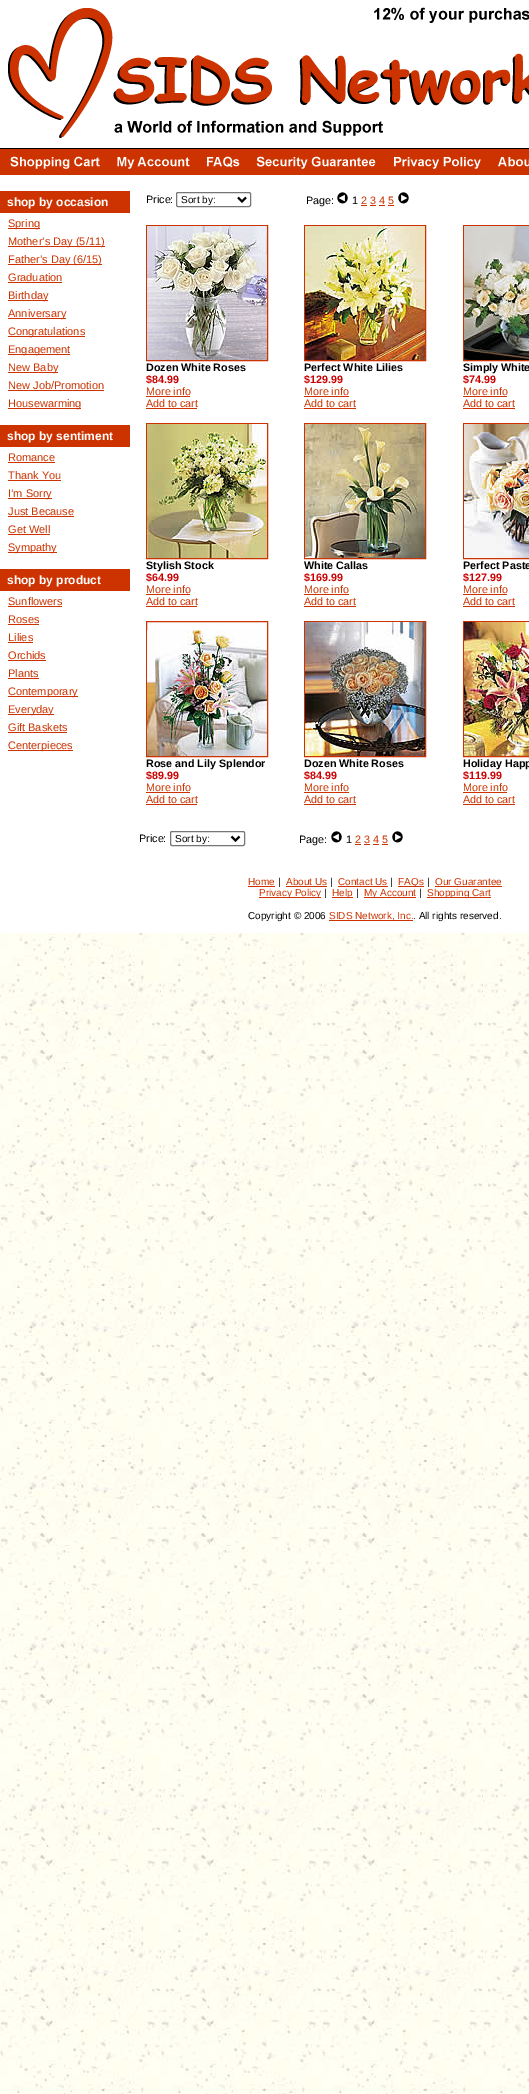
%!PS
<< /PageSize [529 2094] >> setpagedevice
/rgb { 3 { 255 div 3 1 roll } repeat setrgbcolor } def
/font { [ exch dup neg 0 0 3 -1 roll 0 0 ] selectfont } def
/roundrect { 5 dict begin { /r /h /w /y /x } { exch def } forall
  x r add y moveto x w add y 2 copy h add r arct x w add y h add x 1 index r arct
  x y h add x y r arct x y 2 copy exch w add exch r arct closepath end } def
/picture { 5 dict begin { /h /w /y /x /name } { exch def } forall
  gsave x y translate w h scale
  w h 8 [w 0 0 h 0 0] name (r) file false 3 colorimage grestore end } def
0 2094 translate 1 -1 scale
4 setmiterlimit
255 255 255 rgb
0 0 529 2094 rectfill
(img/1.rgb) 0 933 529 1161 picture
(img/2.rgb) 0 7 529 168 picture
[
  [0 191 130 22 204 51 0]
  [8 228 32 1 204 51 0]
  [8 246 97 1 204 51 0]
  [8 264 94 1 204 51 0]
  [8 282 54 1 204 51 0]
  [8 300 40 1 204 51 0]
  [8 318 58 1 204 51 0]
  [8 336 77 1 204 51 0]
  [8 354 62 1 204 51 0]
  [8 372 50 1 204 51 0]
  [8 390 96 1 204 51 0]
  [8 408 73 1 204 51 0]
  [0 425 130 22 204 51 0]
  [8 462 47 1 204 51 0]
  [8 480 53 1 204 51 0]
  [8 498 44 1 204 51 0]
  [8 516 66 1 204 51 0]
  [8 534 42 1 204 51 0]
  [8 552 49 1 204 51 0]
  [0 569 130 22 204 51 0]
  [8 606 54 1 204 51 0]
  [8 624 31 1 204 51 0]
  [8 642 25 1 204 51 0]
  [8 660 38 1 204 51 0]
  [8 678 31 1 204 51 0]
  [8 696 70 1 204 51 0]
  [8 714 46 1 204 51 0]
  [8 732 59 1 204 51 0]
  [8 750 65 1 204 51 0]
] { aload pop rgb rectfill } forall
118 118 118 rgb
176.5 192.5 74 14 1.5 roundrect stroke
0 0 0 rgb
2 setlinewidth
238 197.5 moveto 242 201.5 lineto 246 197.5 lineto stroke
(img/3.rgb) 337 192 11 12 picture
204 51 0 rgb
361 205 6 1 rectfill
(img/4.rgb) 398 192 11 12 picture
[
  [370 205 6 1 204 51 0]
  [379 205 6 1 204 51 0]
  [388 205 6 1 204 51 0]
] { aload pop rgb rectfill } forall
1 setlinewidth
146.5 225.5 121 135 rectstroke
(img/5.rgb) 147 226 120 134 picture
304.5 225.5 121 135 rectstroke
(img/6.rgb) 305 226 120 134 picture
463.5 225.5 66 135 rectstroke
(img/7.rgb) 464 226 65 134 picture
[
  [146 396 44 1 204 51 0]
  [146 408 51 1 204 51 0]
  [304 396 45 1 204 51 0]
  [304 408 52 1 204 51 0]
  [463 396 44 1 204 51 0]
  [463 408 52 1 204 51 0]
] { aload pop rgb rectfill } forall
146.5 423.5 121 135 rectstroke
(img/8.rgb) 147 424 120 134 picture
304.5 423.5 121 135 rectstroke
(img/9.rgb) 305 424 120 134 picture
463.5 423.5 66 135 rectstroke
(img/10.rgb) 464 424 65 134 picture
[
  [146 594 44 1 204 51 0]
  [146 606 51 1 204 51 0]
  [304 594 45 1 204 51 0]
  [304 606 52 1 204 51 0]
  [463 594 44 1 204 51 0]
  [463 606 52 1 204 51 0]
] { aload pop rgb rectfill } forall
146.5 621.5 121 135 rectstroke
(img/11.rgb) 147 630 120 126 picture
304.5 621.5 121 135 rectstroke
(img/12.rgb) 305 622 120 134 picture
463.5 621.5 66 135 rectstroke
(img/13.rgb) 464 622 65 134 picture
[
  [146 792 44 1 204 51 0]
  [146 804 51 1 204 51 0]
  [304 792 45 1 204 51 0]
  [304 804 52 1 204 51 0]
  [463 792 44 1 204 51 0]
  [463 804 52 1 204 51 0]
] { aload pop rgb rectfill } forall
118 118 118 rgb
170.5 831.5 74 14 1.5 roundrect stroke
0 0 0 rgb
2 setlinewidth
231.5 836.5 moveto 235.5 840.5 lineto 239.5 836.5 lineto stroke
(img/3.rgb) 331 831 11 12 picture
204 51 0 rgb
355 844 6 1 rectfill
(img/4.rgb) 392 831 11 12 picture
[
  [364 844 6 1 204 51 0]
  [373 844 6 1 204 51 0]
  [382 844 6 1 204 51 0]
  [248 886 27 1 204 51 0]
  [286 886 41 1 204 51 0]
  [338 886 50 1 204 51 0]
  [398 886 26 1 204 51 0]
  [435 886 67 1 204 51 0]
  [259 897 62 1 204 51 0]
  [332 897 21 1 204 51 0]
  [364 897 52 1 204 51 0]
  [427 897 64 1 204 51 0]
  [329 920 84 1 204 51 0]
] { aload pop rgb rectfill } forall
/LiberationSans-Bold 12 font
255 255 255 rgb
7 206 moveto (shop by occasion) show
/LiberationSans-Regular 11 font
204 51 0 rgb
[
  [(Spring) 8 227]
  [(Mother’s Day \(5/11\)) 8 245]
  [(Father’s Day \(6/15\)) 8 263]
  [(Graduation) 8 281]
  [(Birthday) 8 299]
  [(Anniversary) 8 317]
  [(Congratulations) 8 335]
  [(Engagement) 8 353]
  [(New Baby) 8 371]
  [(New Job/Promotion) 8 389]
  [(Housewarming) 8 407]
] { aload pop moveto show } forall
/LiberationSans-Bold 12 font
255 255 255 rgb
7 440 moveto (shop by sentiment) show
/LiberationSans-Regular 11 font
204 51 0 rgb
[
  [(Romance) 8 461]
  [(Thank You) 8 479]
  [(I’m Sorry) 8 497]
  [(Just Because) 8 515]
  [(Get Well) 8 533]
  [(Sympathy) 8 551]
] { aload pop moveto show } forall
/LiberationSans-Bold 12 font
255 255 255 rgb
7 584 moveto (shop by product) show
/LiberationSans-Regular 11 font
204 51 0 rgb
[
  [(Sunflowers) 8 605]
  [(Roses) 8 623]
  [(Lilies) 8 641]
  [(Orchids) 8 659]
  [(Plants) 8 677]
  [(Contemporary) 8 695]
  [(Everyday) 8 713]
  [(Gift Baskets) 8 731]
  [(Centerpieces) 8 749]
] { aload pop moveto show } forall
/LiberationSans-Regular 10.75 font
0 0 0 rgb
146 203 moveto (Price:) show
/LiberationSans-Regular 10 font
181 203 moveto (Sort by:) show
/LiberationSans-Regular 10.75 font
306 204 moveto (Page:) show
352 204 moveto (1) show
204 51 0 rgb
361 204 moveto (2 3 4 5) show
/LiberationSans-Bold 10.75 font
0 0 0 rgb
146 371 moveto (Dozen White Roses) show
204 0 0 rgb
146 383 moveto ($84.99) show
/LiberationSans-Regular 10.75 font
204 51 0 rgb
146 395 moveto (More info) show
146 407 moveto (Add to cart) show
/LiberationSans-Bold 10.75 font
0 0 0 rgb
304 371 moveto (Perfect White Lilies) show
204 0 0 rgb
304 383 moveto ($129.99) show
/LiberationSans-Regular 10.75 font
204 51 0 rgb
304 395 moveto (More info) show
304 407 moveto (Add to cart) show
/LiberationSans-Bold 10.75 font
0 0 0 rgb
463 371 moveto (Simply White) show
204 0 0 rgb
463 383 moveto ($74.99) show
/LiberationSans-Regular 10.75 font
204 51 0 rgb
463 395 moveto (More info) show
463 407 moveto (Add to cart) show
/LiberationSans-Bold 10.75 font
0 0 0 rgb
146 569 moveto (Stylish Stock) show
204 0 0 rgb
146 581 moveto ($64.99) show
/LiberationSans-Regular 10.75 font
204 51 0 rgb
146 593 moveto (More info) show
146 605 moveto (Add to cart) show
/LiberationSans-Bold 10.75 font
0 0 0 rgb
304 569 moveto (White Callas) show
204 0 0 rgb
304 581 moveto ($169.99) show
/LiberationSans-Regular 10.75 font
204 51 0 rgb
304 593 moveto (More info) show
304 605 moveto (Add to cart) show
/LiberationSans-Bold 10.75 font
0 0 0 rgb
463 569 moveto (Perfect Paste) show
204 0 0 rgb
463 581 moveto ($127.99) show
/LiberationSans-Regular 10.75 font
204 51 0 rgb
463 593 moveto (More info) show
463 605 moveto (Add to cart) show
/LiberationSans-Bold 10.75 font
0 0 0 rgb
146 767 moveto (Rose and Lily Splendor) show
204 0 0 rgb
146 779 moveto ($89.99) show
/LiberationSans-Regular 10.75 font
204 51 0 rgb
146 791 moveto (More info) show
146 803 moveto (Add to cart) show
/LiberationSans-Bold 10.75 font
0 0 0 rgb
304 767 moveto (Dozen White Roses) show
204 0 0 rgb
304 779 moveto ($84.99) show
/LiberationSans-Regular 10.75 font
204 51 0 rgb
304 791 moveto (More info) show
304 803 moveto (Add to cart) show
/LiberationSans-Bold 10.75 font
0 0 0 rgb
463 767 moveto (Holiday Happ) show
204 0 0 rgb
463 779 moveto ($119.99) show
/LiberationSans-Regular 10.75 font
204 51 0 rgb
463 791 moveto (More info) show
463 803 moveto (Add to cart) show
0 0 0 rgb
139 842 moveto (Price:) show
/LiberationSans-Regular 10 font
175 842 moveto (Sort by:) show
/LiberationSans-Regular 10.75 font
299 843 moveto (Page:) show
346 843 moveto (1) show
204 51 0 rgb
355 843 moveto (2 3 4 5) show
/LiberationSans-Regular 10 font
248 885 moveto (Home) show
0 0 0 rgb
278 885 moveto (|) show
204 51 0 rgb
286 885 moveto (About Us) show
0 0 0 rgb
330 885 moveto (|) show
204 51 0 rgb
338 885 moveto (Contact Us) show
0 0 0 rgb
390 885 moveto (|) show
204 51 0 rgb
398 885 moveto (FAQs) show
0 0 0 rgb
427 885 moveto (|) show
204 51 0 rgb
435 885 moveto (Our Guarantee) show
259 896 moveto (Privacy Policy) show
0 0 0 rgb
324 896 moveto (|) show
204 51 0 rgb
332 896 moveto (Help) show
0 0 0 rgb
356 896 moveto (|) show
204 51 0 rgb
364 896 moveto (My Account) show
0 0 0 rgb
419 896 moveto (|) show
204 51 0 rgb
427 896 moveto (Shopping Cart) show
0 0 0 rgb
248 919 moveto (Copyright © 2006) show
204 51 0 rgb
329 919 moveto (SIDS Network, Inc.) show
0 0 0 rgb
413 919 moveto (. All rights reserved.) show
showpage
